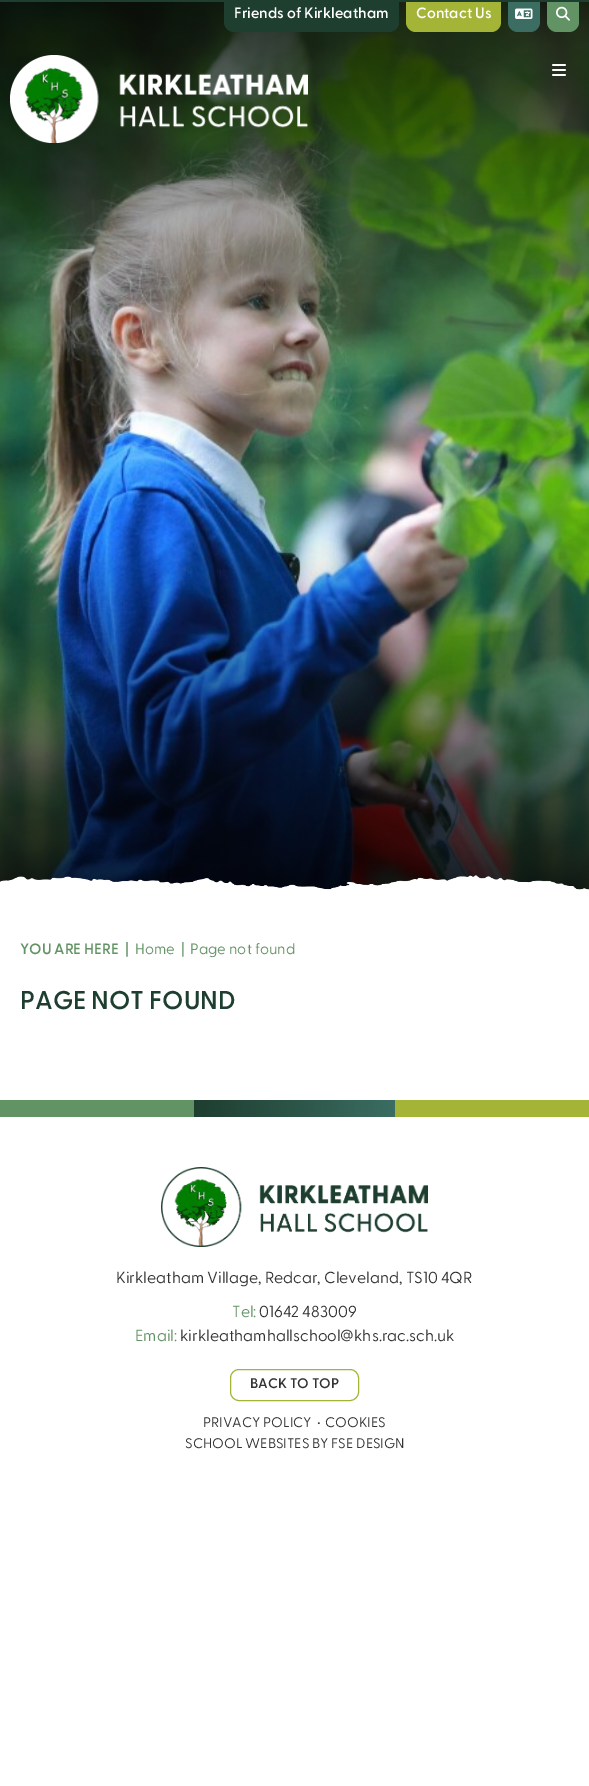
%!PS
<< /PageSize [589 1786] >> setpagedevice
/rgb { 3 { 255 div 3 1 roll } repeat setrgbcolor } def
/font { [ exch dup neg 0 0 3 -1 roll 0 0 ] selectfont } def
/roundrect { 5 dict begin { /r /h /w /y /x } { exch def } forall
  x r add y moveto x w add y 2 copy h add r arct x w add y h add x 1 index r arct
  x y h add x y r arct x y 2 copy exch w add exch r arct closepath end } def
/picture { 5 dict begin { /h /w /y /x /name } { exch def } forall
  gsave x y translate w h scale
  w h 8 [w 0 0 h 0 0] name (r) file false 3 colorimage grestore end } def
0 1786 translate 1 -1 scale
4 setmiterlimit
255 255 255 rgb
0 0 589 1786 rectfill
(img/1.rgb) 0 2 589 888 picture
30 62 47 rgb
224 0 moveto 399 0 lineto 399 22 lineto 399 27.5 394.5 32 389 32 curveto 234 32 lineto 228.5 32 224 27.5 224 22 curveto closepath fill
164 180 55 rgb
406 0 moveto 501 0 lineto 501 22 lineto 501 27.5 496.5 32 491 32 curveto 416 32 lineto 410.5 32 406 27.5 406 22 curveto closepath fill
59 109 98 rgb
508 0 moveto 540 0 lineto 540 22 lineto 540 27.5 535.5 32 530 32 curveto 518 32 lineto 512.5 32 508 27.5 508 22 curveto closepath fill
98 147 100 rgb
547 0 moveto 579 0 lineto 579 22 lineto 579 27.5 574.5 32 569 32 curveto 557 32 lineto 551.5 32 547 27.5 547 22 curveto closepath fill
30 62 47 rgb
0 0 589 2 rectfill
(img/2.rgb) 515 8 18 11 picture
(img/3.rgb) 556 6 14 15 picture
(img/4.rgb) 10 55 298 88 picture
(img/5.rgb) 552 64 14 12 picture
(img/6.rgb) 0 875 589 18 picture
gsave 0 1100 moveto 589 1100 lineto 589 1117 lineto 0 1117 lineto closepath clip newpath
<< /ShadingType 2 /ColorSpace /DeviceRGB /Coords [0 1109 589 1109] /Extend [true true] /Function << /FunctionType 3 /Domain [0 1] /Functions [<< /FunctionType 2 /Domain [0 1] /C0 [0.384 0.576 0.392] /C1 [0.384 0.576 0.392] /N 1 >> << /FunctionType 2 /Domain [0 1] /C0 [0.118 0.243 0.184] /C1 [0.231 0.427 0.384] /N 1 >> << /FunctionType 2 /Domain [0 1] /C0 [0.643 0.706 0.216] /C1 [0.643 0.706 0.216] /N 1 >>] /Bounds [0.33 0.67] /Encode [0 1 0 1 0 1] >> >> shfill grestore
(img/7.rgb) 161 1167 267 80 picture
164 180 55 rgb
230.5 1369.5 128 31 8.5 roundrect stroke
/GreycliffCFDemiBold-SemiBold 15 font
255 255 255 rgb
234 18 moveto (Friends of Kirkleatham) show
416 18 moveto (Contact Us) show
98 147 100 rgb
20 954 moveto (YOU ARE HERE) show
125 954 moveto (|) show
/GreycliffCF-Regular 15 font
[
  [(Home) 135 954]
  [(|) 181 954]
  [(Page not found) 190 954]
] { aload pop moveto show } forall
/GreycliffCFDemiBold-SemiBold 25.75 font
30 62 47 rgb
20 1009 moveto (PAGE NOT FOUND) show
/GreycliffCF-Regular 16 font
51 51 51 rgb
116 1283 moveto (Kirkleatham Village, Redcar, Cleveland, TS10 4QR) show
98 147 100 rgb
232 1317 moveto (Tel:) show
51 51 51 rgb
259 1317 moveto (01642 483009) show
98 147 100 rgb
135 1341 moveto (Email:) show
51 51 51 rgb
180 1341 moveto (kirkleathamhallschool@khs.rac.sch.uk) show
/GreycliffCFDemiBold-SemiBold 14 font
250 1388 moveto (BACK TO TOP) show
/GreycliffCF-Regular 14 font
[
  [(PRIVACY POLICY) 203 1427]
  [(•) 317 1427]
  [(COOKIES) 325 1427]
  [(SCHOOL WEBSITES BY FSE DESIGN) 185 1448]
] { aload pop moveto show } forall
showpage
